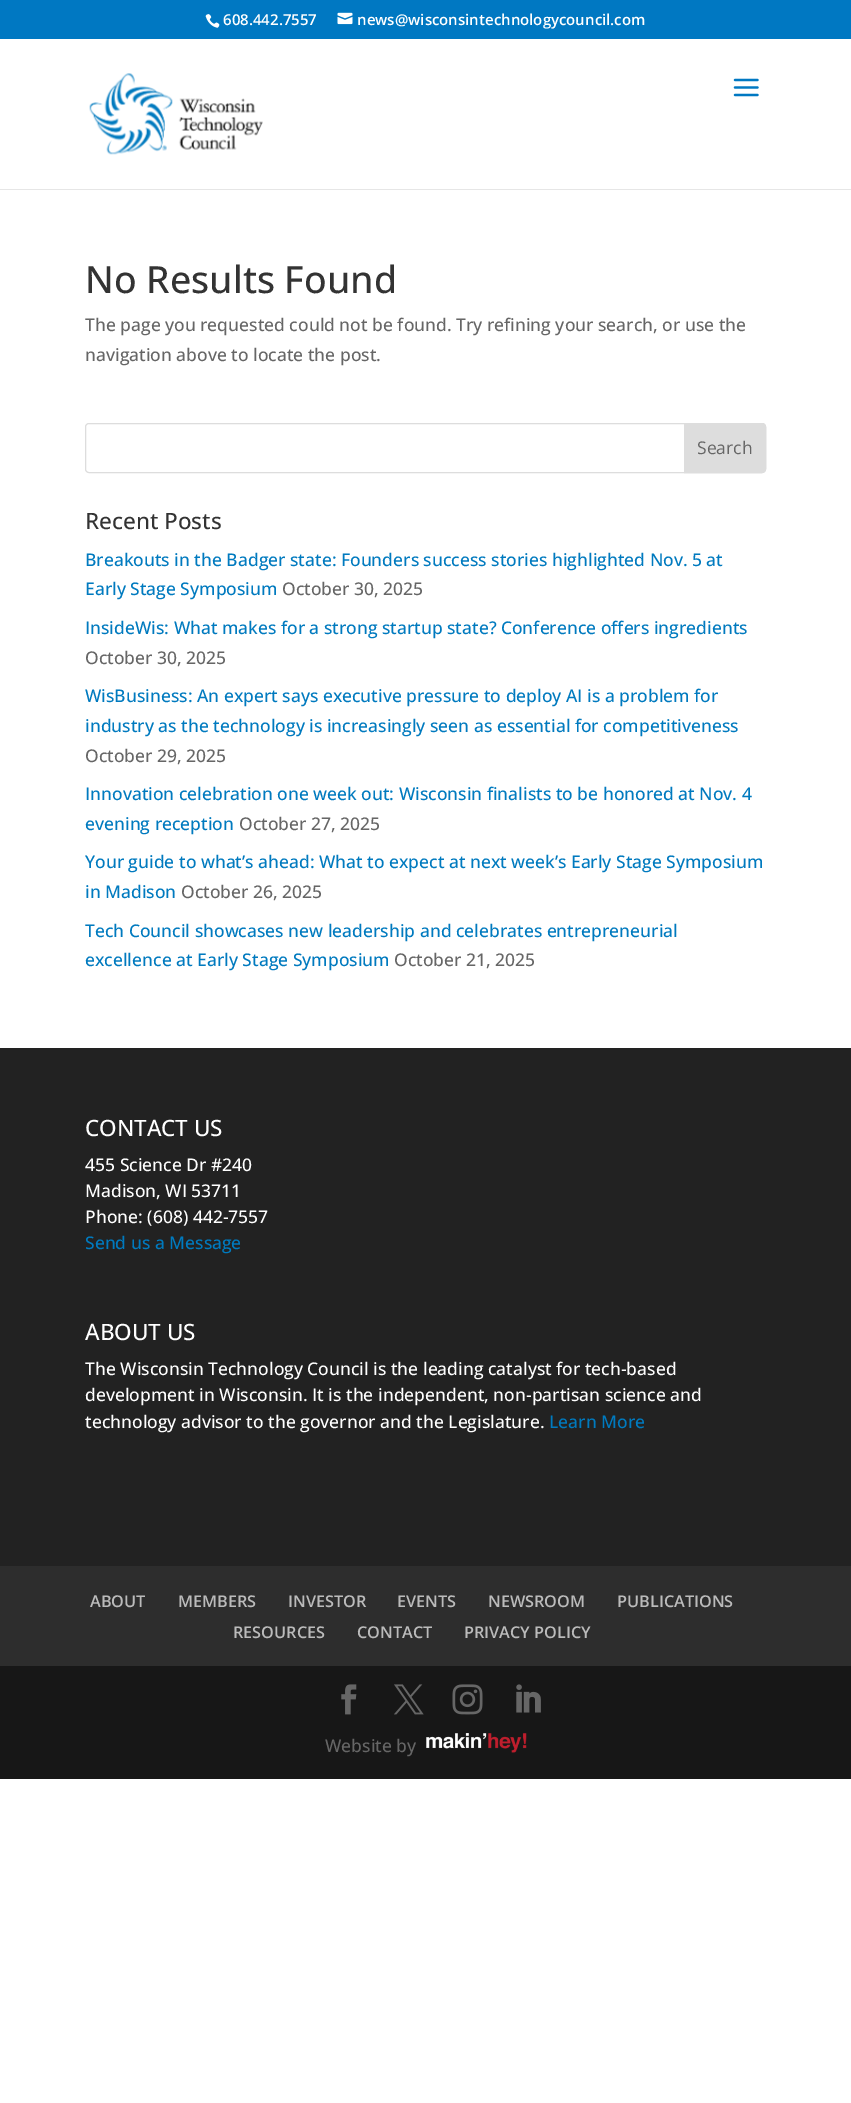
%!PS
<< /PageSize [851 2103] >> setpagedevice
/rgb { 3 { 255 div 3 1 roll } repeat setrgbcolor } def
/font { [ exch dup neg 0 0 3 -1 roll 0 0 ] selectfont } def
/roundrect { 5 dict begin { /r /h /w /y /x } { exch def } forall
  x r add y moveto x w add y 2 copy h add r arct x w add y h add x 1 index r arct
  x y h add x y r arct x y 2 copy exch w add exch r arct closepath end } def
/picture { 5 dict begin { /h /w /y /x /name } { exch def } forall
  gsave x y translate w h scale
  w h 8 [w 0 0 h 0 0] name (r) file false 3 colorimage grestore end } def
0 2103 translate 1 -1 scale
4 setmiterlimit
255 255 255 rgb
0 0 851 2103 rectfill
0 120 194 rgb
0 0 851 39 rectfill
(img/1.rgb) 205 14 15 14 picture
(img/2.rgb) 337 12 16 13 picture
230 230 230 rgb
0 189 851 1 rectfill
(img/3.rgb) 89 73 174 82 picture
(img/4.rgb) 733 78 26 19 picture
221 221 221 rgb
85.5 423.5 680 49 3.5 roundrect stroke
684.5 423.5 moveto 762 423.5 lineto 764 423.5 765.5 425 765.5 427 curveto 765.5 469 lineto 765.5 471 764 472.5 762 472.5 curveto 684.5 472.5 lineto closepath gsave fill grestore
stroke
[
  [0 1048 851 518 34 34 34]
  [0 1566 851 100 45 45 45]
  [0 1666 851 113 23 23 23]
] { aload pop rgb rectfill } forall
(img/5.rgb) 341 1684 16 31 picture
(img/6.rgb) 394 1684 30 31 picture
(img/7.rgb) 452 1684 31 31 picture
(img/8.rgb) 516 1684 25 29 picture
(img/9.rgb) 426 1733 101 20 picture
/OpenSans-SemiBold 15 font
255 255 255 rgb
223 25 moveto (608.442.7557) show
357 25 moveto (news@wisconsintechnologycouncil.com) show
/OpenSans-Medium 37.5 font
51 51 51 rgb
85 293 moveto (No Results Found) show
/OpenSans-Medium 17.5 font
102 102 102 rgb
85 331 moveto (The page you requested could not be found. Try refining your search, or use the) show
85 361 moveto (navigation above to locate the post.) show
/OpenSans-Regular 17.5 font
697 454 moveto (Search) show
/OpenSans-Medium 22.5 font
51 51 51 rgb
85 529 moveto (Recent Posts) show
/OpenSans-Medium 17.5 font
0 122 191 rgb
85 566 moveto (Breakouts in the Badger state: Founders success stories highlighted Nov. 5 at) show
85 595 moveto (Early Stage Symposium) show
102 102 102 rgb
282 595 moveto (October 30, 2025) show
0 122 191 rgb
85 634 moveto (InsideWis: What makes for a strong startup state? Conference offers ingredients) show
102 102 102 rgb
85 664 moveto (October 30, 2025) show
0 122 191 rgb
85 702 moveto (WisBusiness: An expert says executive pressure to deploy AI is a problem for) show
85 732 moveto (industry as the technology is increasingly seen as essential for competitiveness) show
102 102 102 rgb
85 762 moveto (October 29, 2025) show
0 122 191 rgb
85 800 moveto (Innovation celebration one week out: Wisconsin finalists to be honored at Nov. 4) show
85 830 moveto (evening reception) show
102 102 102 rgb
239 830 moveto (October 27, 2025) show
0 122 191 rgb
85 868 moveto (Your guide to what’s ahead: What to expect at next week’s Early Stage Symposium) show
85 898 moveto (in Madison) show
102 102 102 rgb
181 898 moveto (October 26, 2025) show
0 122 191 rgb
85 937 moveto (Tech Council showcases new leadership and celebrates entrepreneurial) show
85 966 moveto (excellence at Early Stage Symposium) show
102 102 102 rgb
394 966 moveto (October 21, 2025) show
/OpenSans-Medium 22.5 font
255 255 255 rgb
85 1136 moveto (CONTACT US) show
/OpenSans-Medium 17.5 font
[
  [(455 Science Dr #240) 85 1171]
  [(Madison, WI 53711) 85 1197]
  [(Phone: \(608\) 442-7557) 85 1223]
] { aload pop moveto show } forall
0 122 191 rgb
85 1249 moveto (Send us a Message) show
/OpenSans-Medium 22.5 font
255 255 255 rgb
85 1340 moveto (ABOUT US) show
/OpenSans-Medium 17.5 font
[
  [(The Wisconsin Technology Council is the leading catalyst for tech-based) 85 1375]
  [(development in Wisconsin. It is the independent, non-partisan science and) 85 1401]
  [(technology advisor to the governor and the Legislature.) 85 1428]
] { aload pop moveto show } forall
0 122 191 rgb
549 1428 moveto (Learn More) show
/OpenSans-SemiBold 16.25 font
187 187 187 rgb
[
  [(ABOUT) 90 1607]
  [(MEMBERS) 178 1607]
  [(INVESTOR) 288 1607]
  [(EVENTS) 397 1607]
  [(NEWSROOM) 488 1607]
  [(PUBLICATIONS) 617 1607]
  [(RESOURCES) 233 1638]
  [(CONTACT) 357 1638]
  [(PRIVACY POLICY) 464 1638]
] { aload pop moveto show } forall
/OpenSans-Medium 17.5 font
102 102 102 rgb
325 1752 moveto (Website by) show
showpage
